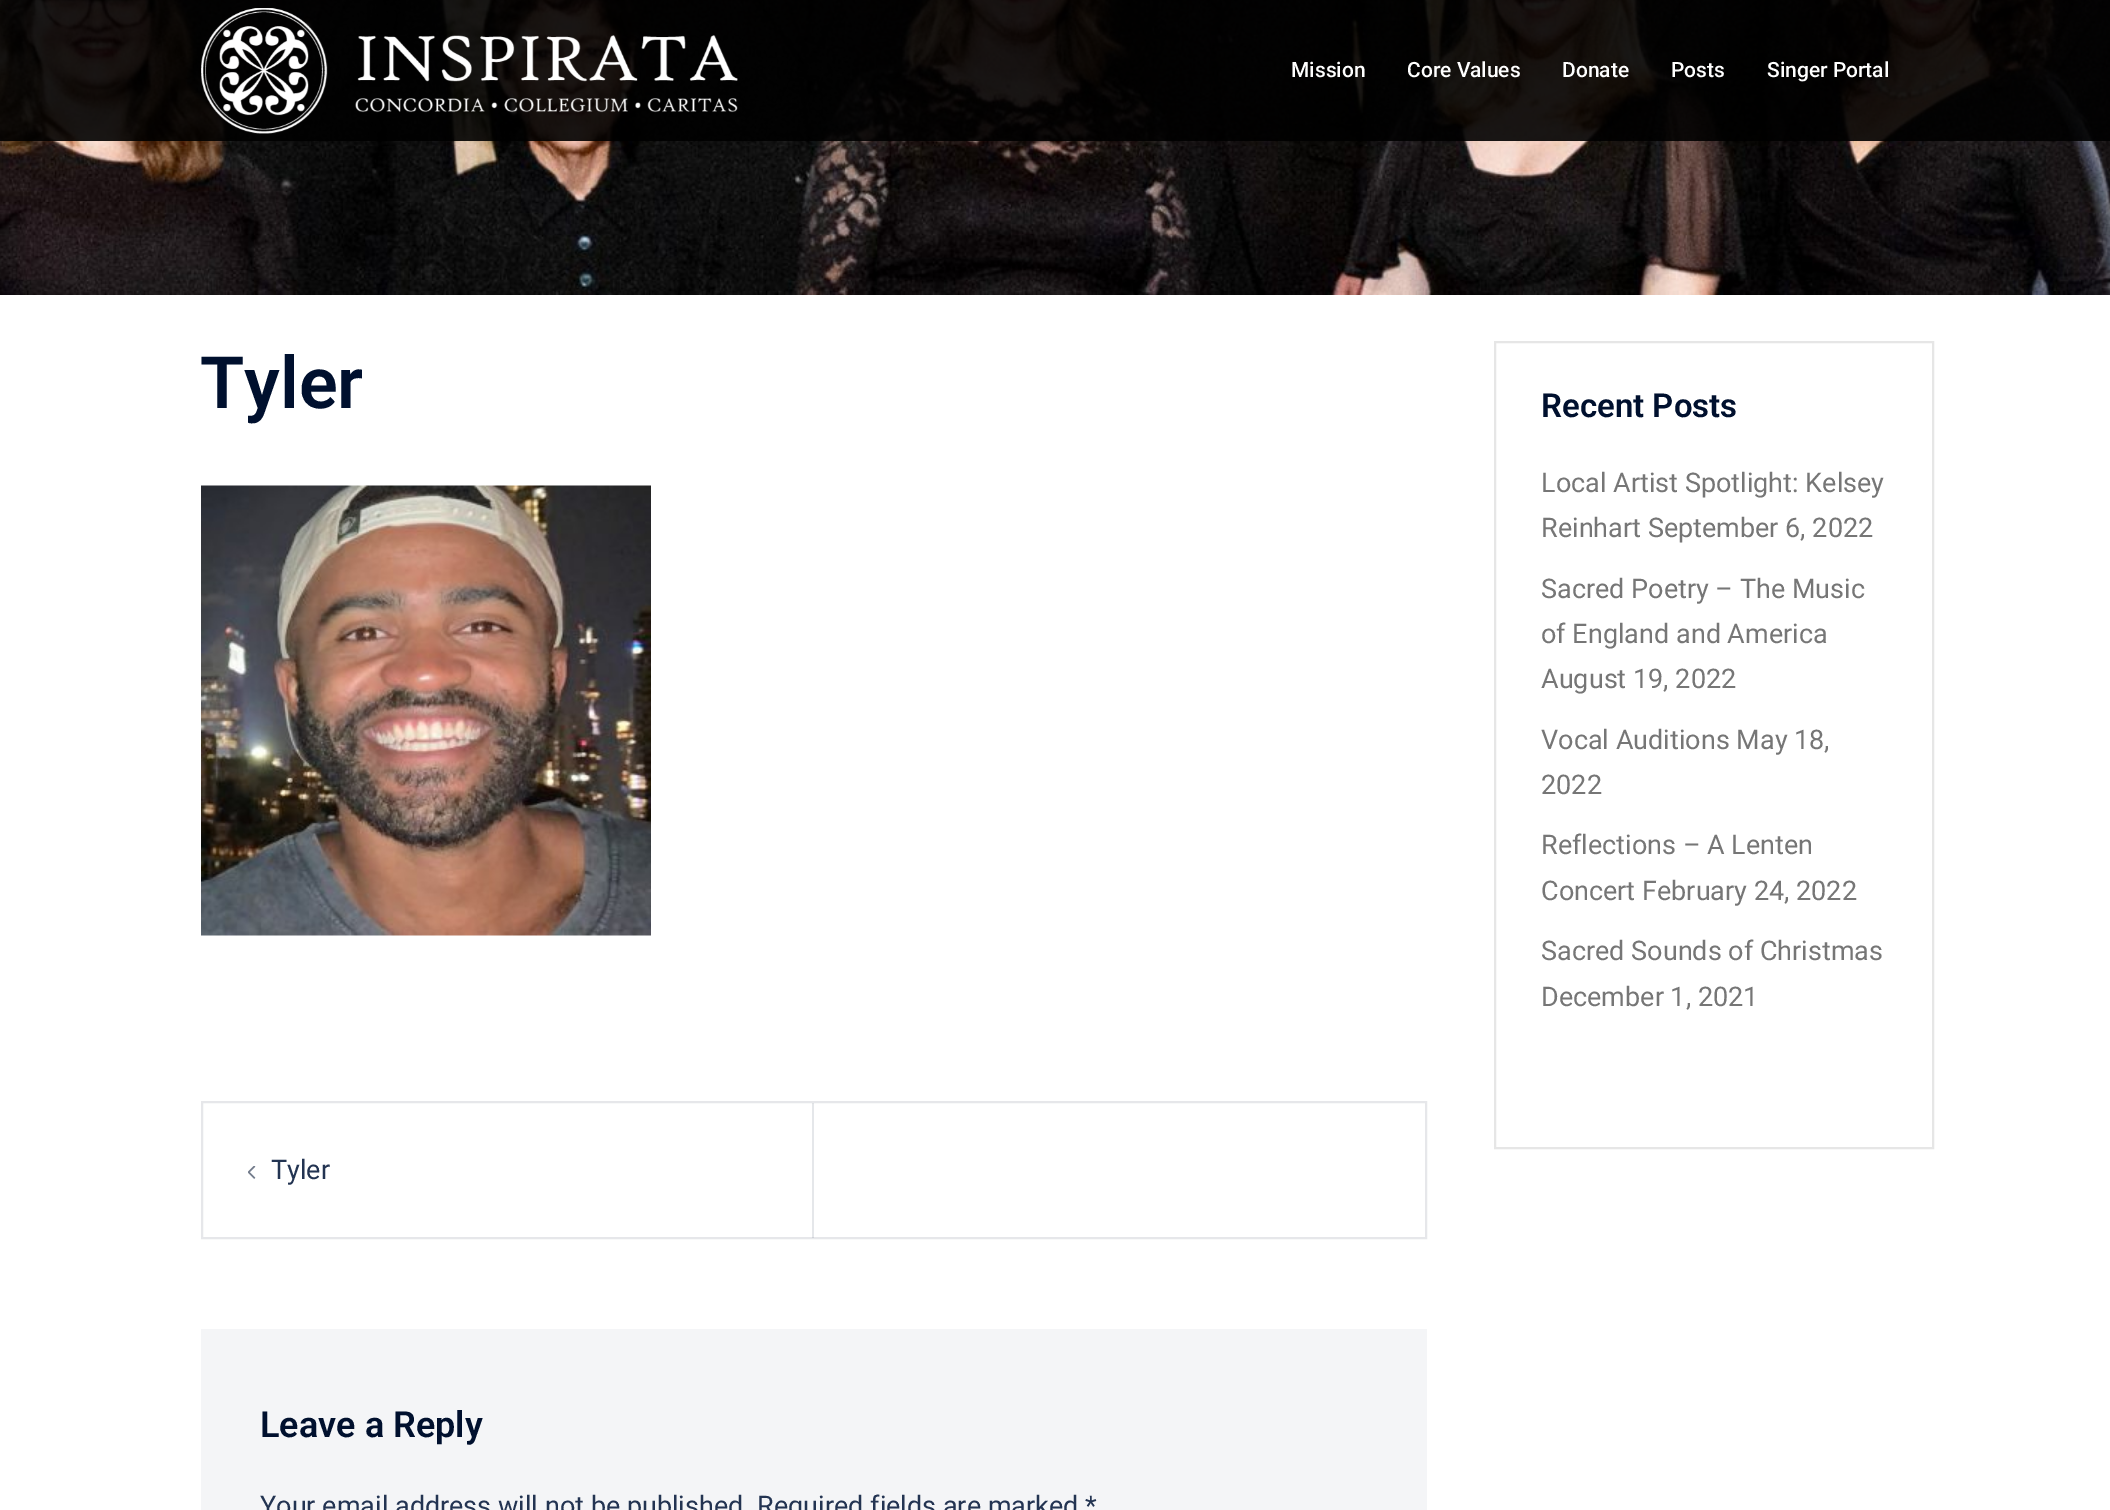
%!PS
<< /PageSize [2110 1510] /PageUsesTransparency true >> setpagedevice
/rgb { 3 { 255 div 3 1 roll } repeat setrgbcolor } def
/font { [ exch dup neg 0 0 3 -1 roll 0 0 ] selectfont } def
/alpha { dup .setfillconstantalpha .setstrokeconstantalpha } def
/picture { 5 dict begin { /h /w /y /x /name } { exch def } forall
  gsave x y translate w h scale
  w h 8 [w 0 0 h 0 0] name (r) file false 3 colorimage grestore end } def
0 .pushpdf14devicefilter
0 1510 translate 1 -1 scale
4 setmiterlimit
255 255 255 rgb
0 0 2110 1510 rectfill
(img/1.rgb) 0 0 2110 295 picture
0.9 alpha
0 0 0 rgb
0 0 2110 141 rectfill
1 alpha
(img/2.rgb) 201 8 537 126 picture
(img/3.rgb) 201 485 450 451 picture
230 231 234 rgb
2 setlinewidth
202 1102 1224 136 rectstroke
0.1 alpha
0 16 46 rgb
812 1103 2 135 rectfill
1 alpha
(img/4.rgb) 248 1166 8 13 picture
244 245 247 rgb
201 1329 1226 181 rectfill
230 230 230 rgb
1495 342 438 806 rectstroke
/Roboto-Medium 21 font
255 255 255 rgb
[
  [(Mission) 1291 77]
  [(Core Values) 1407 77]
  [(Donate) 1562 77]
  [(Posts) 1671 77]
  [(Singer Portal) 1767 77]
] { aload pop moveto show } forall
/Roboto-SemiBold 72 font
0 16 46 rgb
200 408 moveto (Tyler) show
/Roboto-Regular 27 font
35 52 82 rgb
271 1179 moveto (Tyler) show
/Roboto-SemiBold 36 font
0 16 46 rgb
260 1437 moveto (Leave a Reply) show
/Roboto-Regular 27 font
35 52 82 rgb
260 1515 moveto (Your email address will not be published) show
757 1515 moveto (Required fields are marked *) show
/Roboto-SemiBold 33 font
0 16 46 rgb
1541 417 moveto (Recent Posts) show
/Roboto-Regular 27 font
118 118 118 rgb
[
  [(Local Artist Spotlight: Kelsey) 1541 492]
  [(Reinhart September 6, 2022) 1541 537]
  [(Sacred Poetry – The Music) 1541 598]
  [(of England and America) 1541 643]
  [(August 19, 2022) 1541 688]
  [(Vocal Auditions May 18,) 1541 749]
  [(2022) 1541 794]
  [(Reflections – A Lenten) 1541 854]
  [(Concert February 24, 2022) 1541 900]
  [(Sacred Sounds of Christmas) 1541 960]
  [(December 1, 2021) 1541 1006]
] { aload pop moveto show } forall
.poppdf14devicefilter showpage
